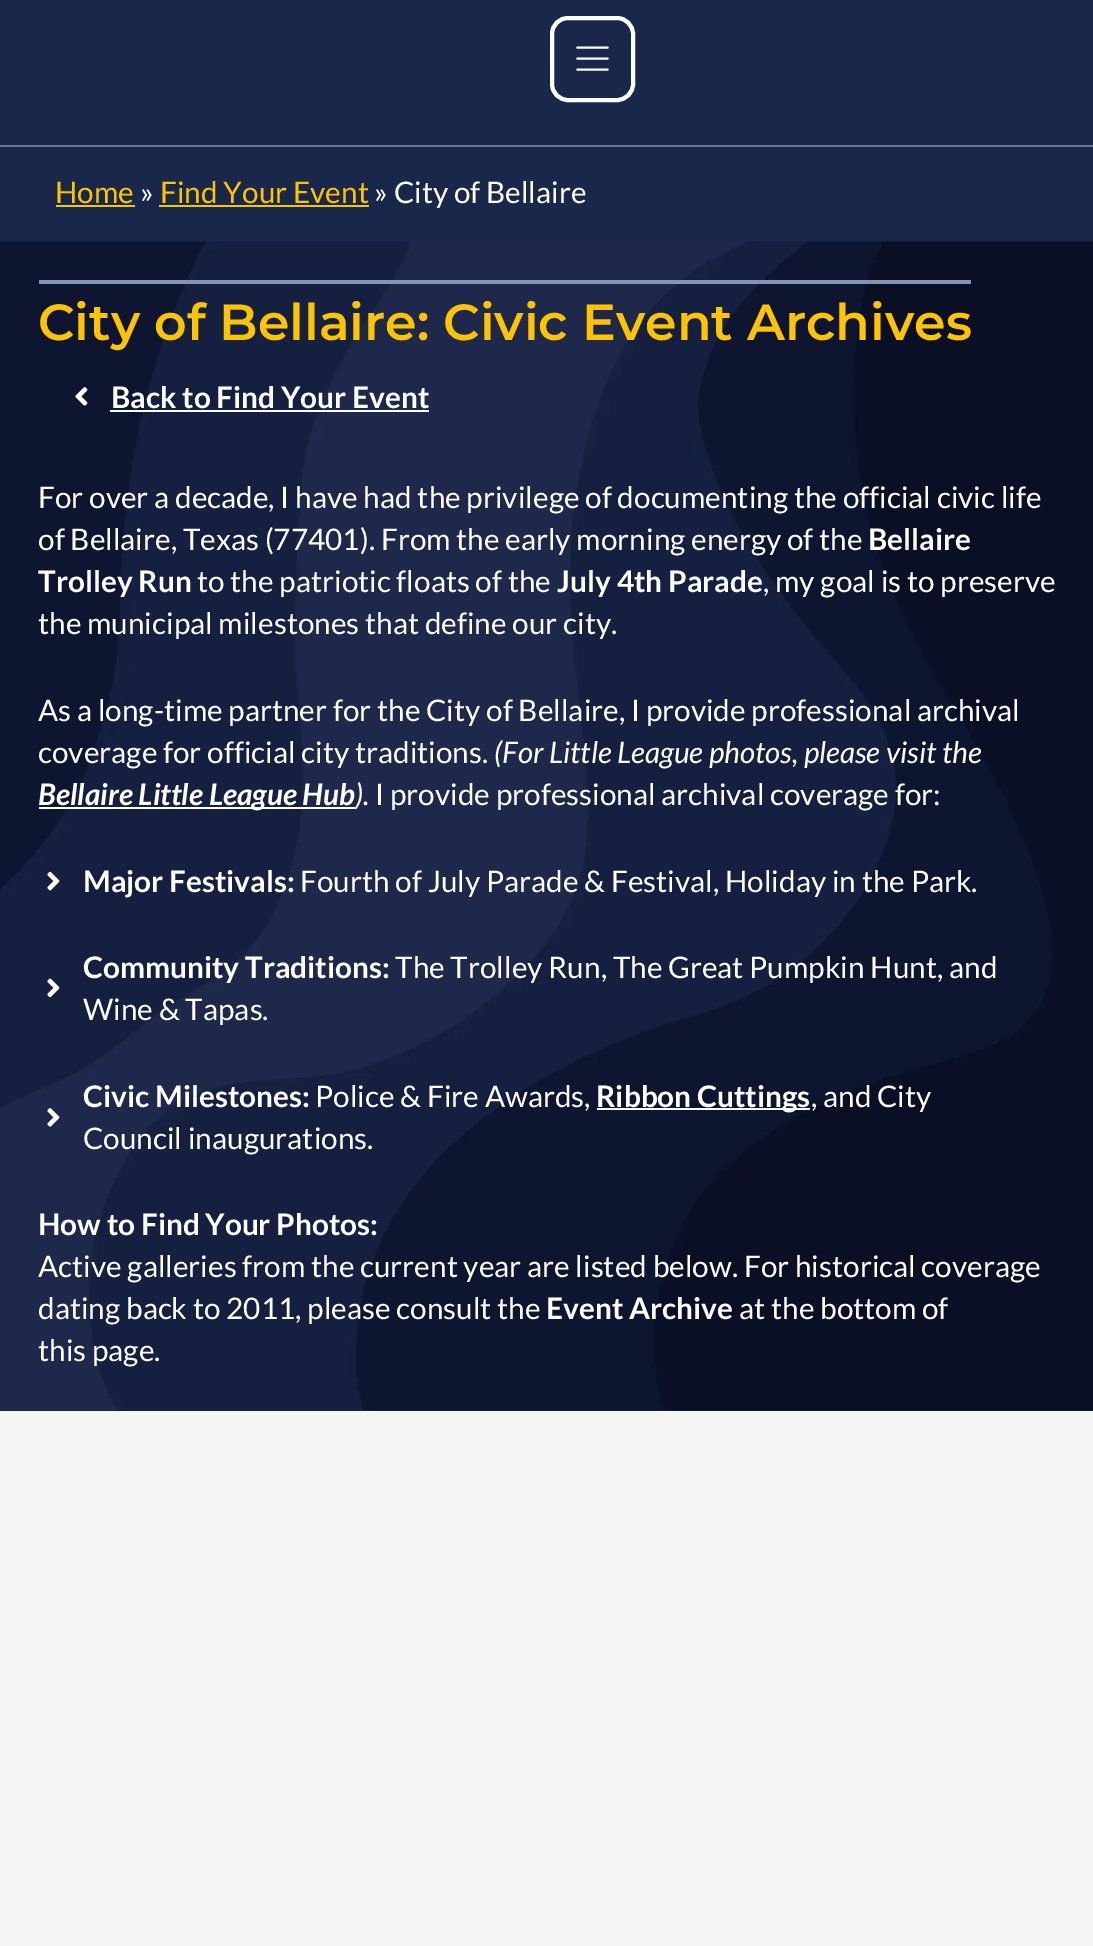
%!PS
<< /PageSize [1093 1946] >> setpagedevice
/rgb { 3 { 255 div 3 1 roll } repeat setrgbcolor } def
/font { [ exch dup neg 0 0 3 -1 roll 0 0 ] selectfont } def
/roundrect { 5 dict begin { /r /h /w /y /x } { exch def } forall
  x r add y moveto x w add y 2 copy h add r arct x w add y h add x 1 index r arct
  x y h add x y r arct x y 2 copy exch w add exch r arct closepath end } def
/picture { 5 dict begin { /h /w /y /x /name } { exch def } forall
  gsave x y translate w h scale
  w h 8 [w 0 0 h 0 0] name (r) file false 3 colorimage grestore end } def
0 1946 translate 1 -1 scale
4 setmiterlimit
245 245 243 rgb
0 0 1093 1946 rectfill
25 40 74 rgb
0 0 1093 145 rectfill
255 255 255 rgb
4 setlinewidth
552 18 81 82 16 roundrect stroke
2.1 setlinewidth
1 setlinecap
1 setlinejoin
577.5 58.5 moveto 607.5 58.5 lineto 577.5 47.5 moveto 607.5 47.5 lineto 577.5 69.5 moveto 607.5 69.5 lineto stroke
[
  [0 147 1093 95 25 40 74]
  [0 145 1093 2 107 122 153]
  [56 205 79 2 255 196 0]
  [159 205 210 2 255 196 0]
  [0 1410 1093 1 25 40 74]
] { aload pop rgb rectfill } forall
(img/1.rgb) 0 241 1093 1170 picture
134 148 179 rgb
39 280 932 4 rectfill
(img/2.rgb) 75 387 13 19 picture
255 255 255 rgb
110 410 319 2 rectfill
39 807 316 2 rectfill
(img/3.rgb) 47 871 13 20 picture
(img/4.rgb) 47 978 13 20 picture
(img/5.rgb) 47 1108 13 19 picture
597 1108 213 2 rectfill
/Lato-Regular 29.75 font
255 196 0 rgb
55 203 moveto (Home) show
255 255 255 rgb
140 203 moveto (») show
255 196 0 rgb
160 203 moveto (Find Your Event) show
255 255 255 rgb
374 203 moveto (» City of Bellaire) show
/Montserrat-SemiBold 50.7 font
255 196 0 rgb
38 340 moveto (City of Bellaire: Civic Event Archives) show
/Lato-Bold 29.75 font
255 255 255 rgb
111 408 moveto (Back to Find Your Event) show
/Lato-Regular 29.75 font
38 508 moveto (For over a decade, I have had the privilege of documenting the official civic life) show
38 550 moveto (of Bellaire, Texas \(77401\). From the early morning energy of the) show
/Lato-Bold 29.75 font
868 550 moveto (Bellaire) show
38 592 moveto (Trolley Run) show
/Lato-Regular 29.75 font
197 592 moveto (to the patriotic floats of the) show
/Lato-Bold 29.75 font
557 592 moveto (July 4th Parade) show
/Lato-Regular 29.75 font
[
  [(, my goal is to preserve) 763 592]
  [(the municipal milestones that define our city.) 38 634]
  [(As a long-time partner for the City of Bellaire, I provide professional archival) 38 721]
  [(coverage for official city traditions.) 38 763]
] { aload pop moveto show } forall
/Lato-Italic 29.75 font
494 763 moveto (\(For Little League photos, please visit the) show
/Lato-BoldItalic 29.75 font
38 805 moveto (Bellaire Little League Hub) show
/Lato-Italic 29.75 font
355 805 moveto (\).) show
/Lato-Regular 29.75 font
375 805 moveto (I provide professional archival coverage for:) show
/Lato-Bold 29.75 font
83 892 moveto (Major Festivals:) show
/Lato-Regular 29.75 font
300 892 moveto (Fourth of July Parade & Festival, Holiday in the Park.) show
/Lato-Bold 29.75 font
83 978 moveto (Community Traditions:) show
/Lato-Regular 29.75 font
395 978 moveto (The Trolley Run, The Great Pumpkin Hunt, and) show
83 1020 moveto (Wine & Tapas.) show
/Lato-Bold 29.75 font
83 1107 moveto (Civic Milestones:) show
/Lato-Regular 29.75 font
315 1107 moveto (Police & Fire Awards,) show
/Lato-Bold 29.75 font
596 1107 moveto (Ribbon Cuttings) show
/Lato-Regular 29.75 font
811 1107 moveto (, and City) show
83 1149 moveto (Council inaugurations.) show
/Lato-Bold 29.75 font
38 1235 moveto (How to Find Your Photos:) show
/Lato-Regular 29.75 font
38 1277 moveto (Active galleries from the current year are listed below. For historical coverage) show
38 1319 moveto (dating back to 2011, please consult the) show
/Lato-Bold 29.75 font
546 1319 moveto (Event Archive) show
/Lato-Regular 29.75 font
739 1319 moveto (at the bottom of) show
38 1361 moveto (this page.) show
showpage
